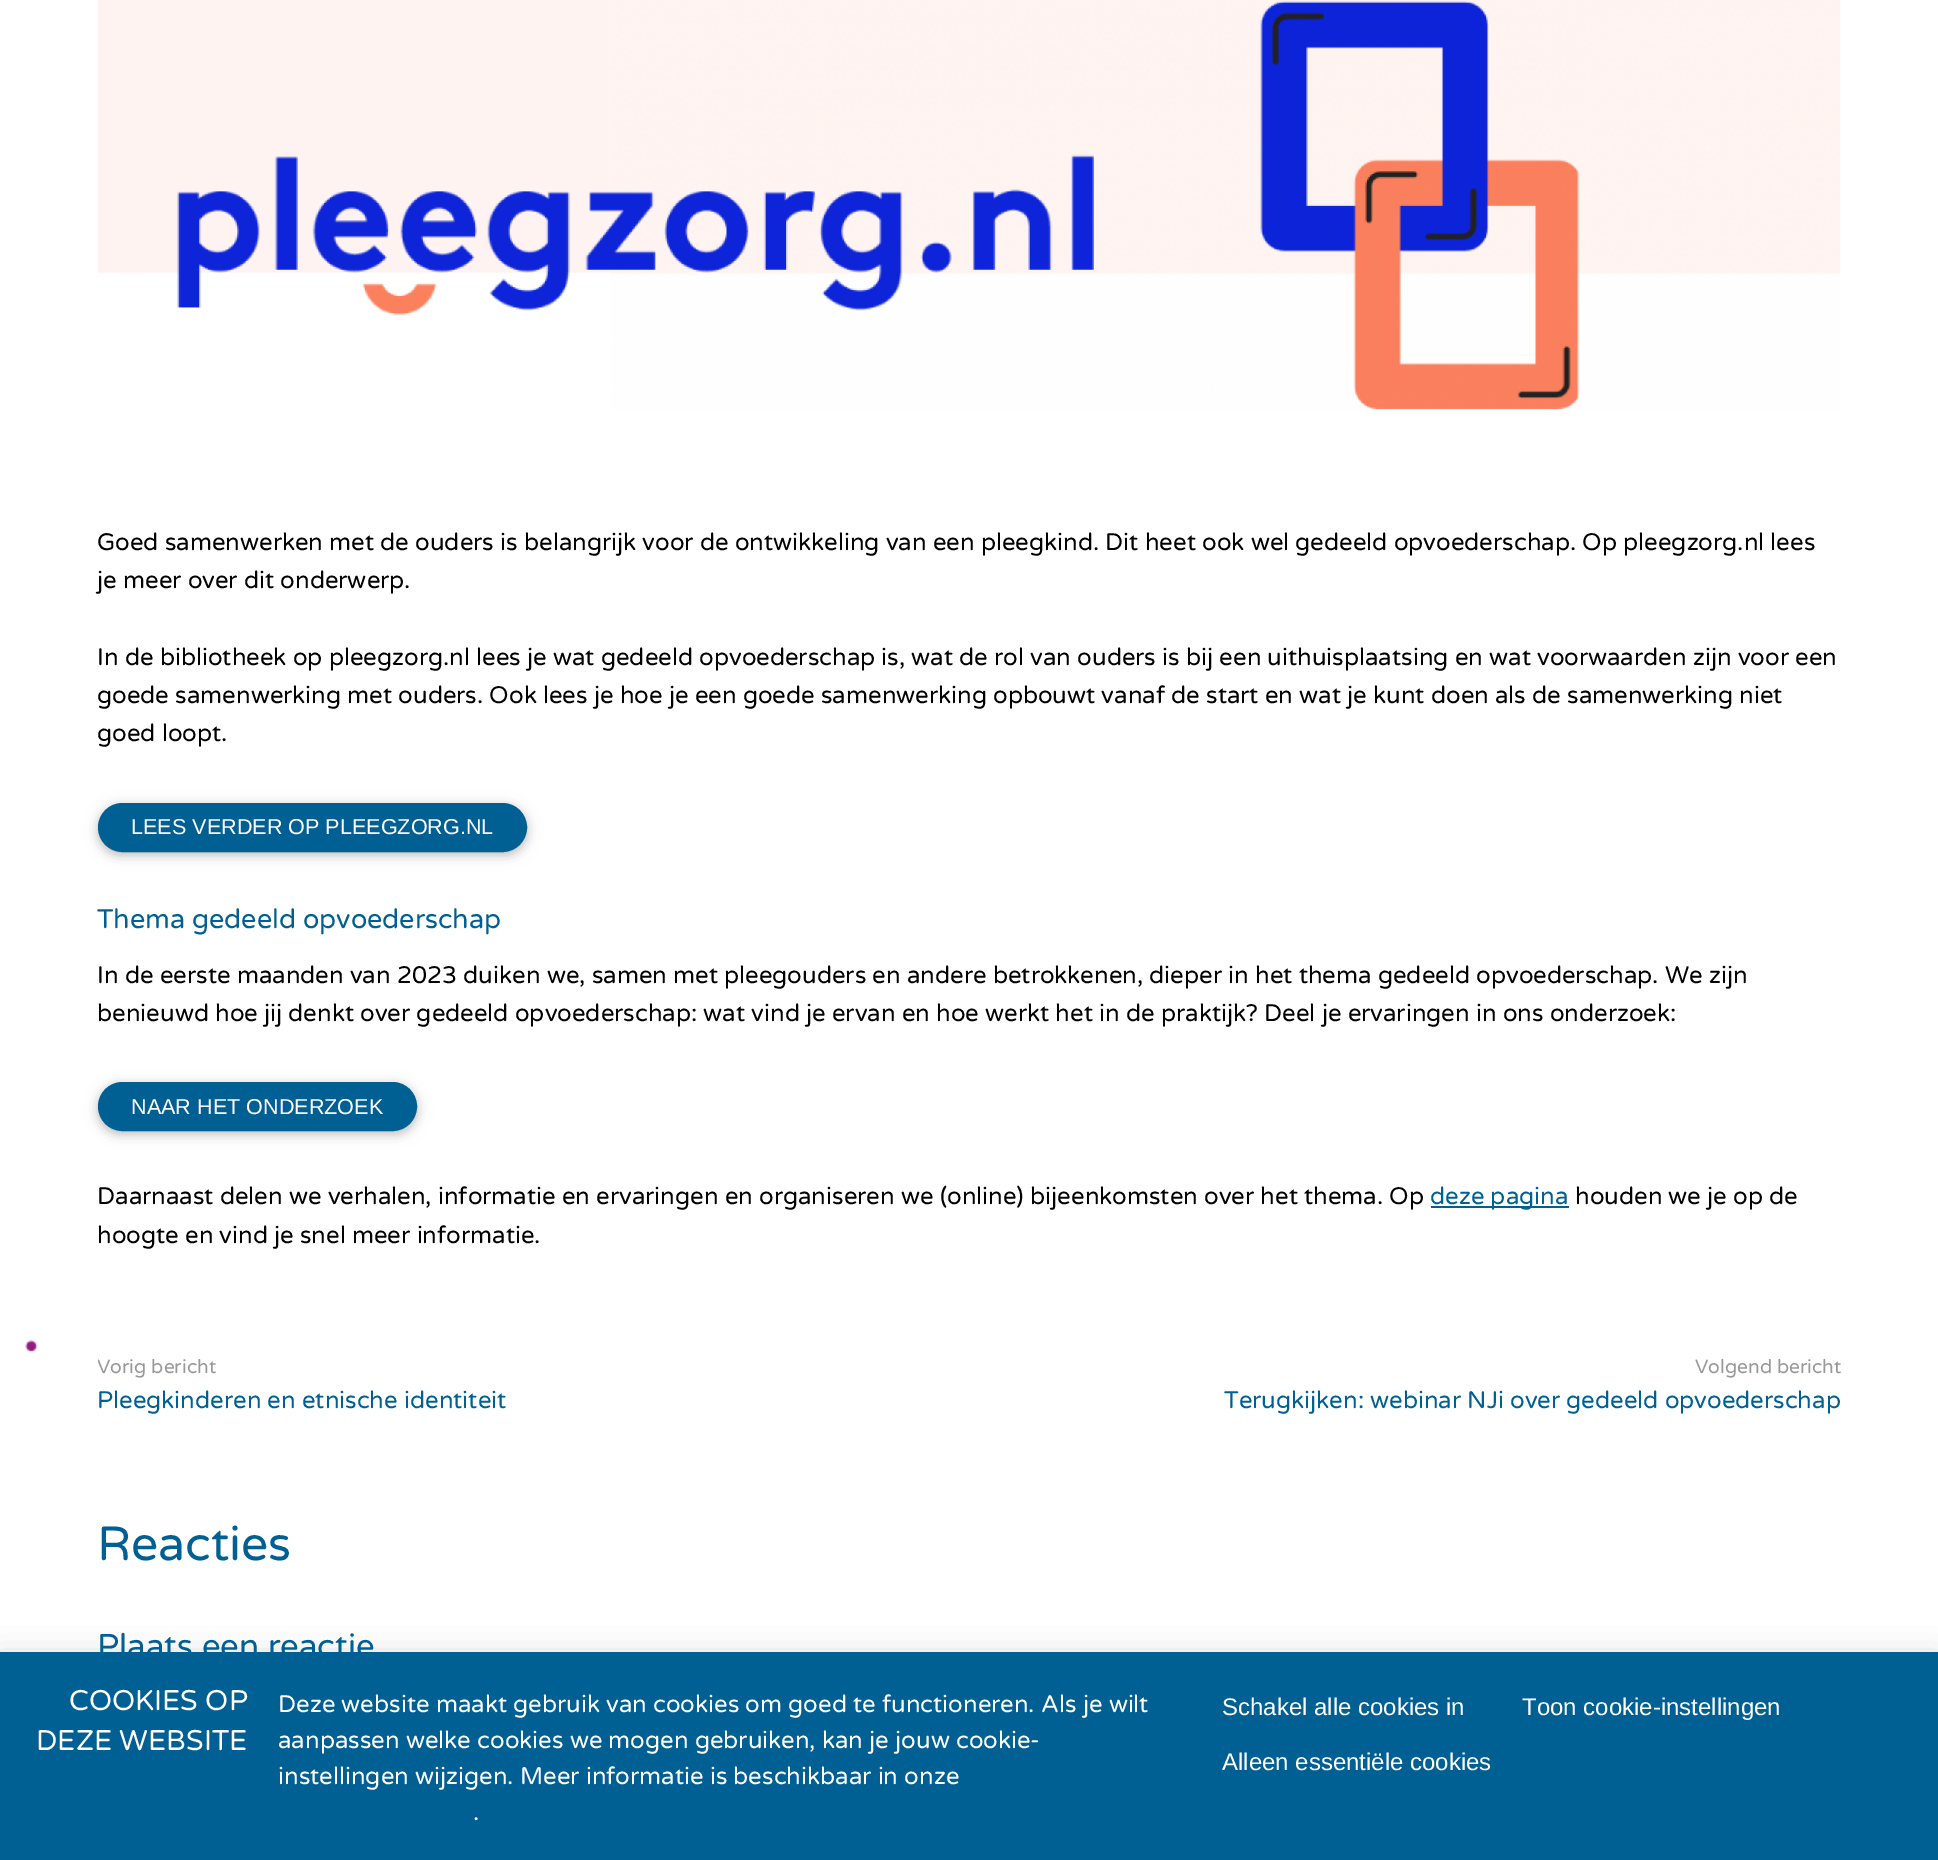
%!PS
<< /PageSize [1938 1860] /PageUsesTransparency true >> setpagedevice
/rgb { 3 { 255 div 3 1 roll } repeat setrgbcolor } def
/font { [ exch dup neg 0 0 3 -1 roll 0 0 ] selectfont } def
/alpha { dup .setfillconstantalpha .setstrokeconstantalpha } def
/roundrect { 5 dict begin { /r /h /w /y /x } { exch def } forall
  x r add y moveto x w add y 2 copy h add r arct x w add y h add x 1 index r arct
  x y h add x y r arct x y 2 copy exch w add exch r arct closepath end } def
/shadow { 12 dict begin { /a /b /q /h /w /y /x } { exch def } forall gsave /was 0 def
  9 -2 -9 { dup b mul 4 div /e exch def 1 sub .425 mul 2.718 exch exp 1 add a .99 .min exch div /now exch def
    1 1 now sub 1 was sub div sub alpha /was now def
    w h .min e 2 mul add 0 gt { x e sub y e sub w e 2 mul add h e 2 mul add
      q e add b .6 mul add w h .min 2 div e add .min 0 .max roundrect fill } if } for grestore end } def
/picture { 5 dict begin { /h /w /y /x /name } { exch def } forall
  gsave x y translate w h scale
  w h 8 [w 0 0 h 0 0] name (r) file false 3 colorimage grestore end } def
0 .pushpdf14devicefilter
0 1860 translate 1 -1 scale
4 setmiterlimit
255 255 255 rgb
0 0 1938 1860 rectfill
(img/1.rgb) 25 1340 13 12 picture
(img/2.rgb) 98 0 1743 410 picture
0 0 0 rgb
98 806 429 49 24.5 7.5 0.12 shadow
98 806 429 49 24.5 4 0.16 shadow
0 96 147 rgb
99 804 427 47 23.5 roundrect gsave fill grestore
2 setlinewidth
stroke
0 0 0 rgb
98 1085 319 49 24.5 7.5 0.12 shadow
98 1085 319 49 24.5 4 0.16 shadow
0 96 147 rgb
99 1083 317 47 23.5 roundrect gsave fill grestore
stroke
1431 1206 138 2 rectfill
0 0 0 rgb
0 1659 1938 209 0 15 0.2 shadow
0 96 147 rgb
0 1652 1938 208 rectfill
/VarelaRound-Regular 24 font
0 0 0 rgb
[
  [(Goed samenwerken met de ouders is belangrijk voor de ontwikkeling van een pleegkind. Dit heet ook wel gedeeld opvoederschap. Op pleegzorg.nl lees) 97 550]
  [(je meer over dit onderwerp.) 97 588]
  [(In de bibliotheek op pleegzorg.nl lees je wat gedeeld opvoederschap is, wat de rol van ouders is bij een uithuisplaatsing en wat voorwaarden zijn voor een) 97 665]
  [(goede samenwerking met ouders. Ook lees je hoe je een goede samenwerking opbouwt vanaf de start en wat je kunt doen als de samenwerking niet) 97 703]
  [(goed loopt.) 97 741]
] { aload pop moveto show } forall
/LiberationSans-Regular 21.6 font
255 255 255 rgb
131 834 moveto (LEES VERDER OP PLEEGZORG.NL) show
/VarelaRound-Regular 27 font
0 96 147 rgb
97 928 moveto (Thema gedeeld opvoederschap) show
/VarelaRound-Regular 24 font
0 0 0 rgb
97 983 moveto (In de eerste maanden van 2023 duiken we, samen met pleegouders en andere betrokkenen, dieper in het thema gedeeld opvoederschap. We zijn) show
97 1021 moveto (benieuwd hoe jij denkt over gedeeld opvoederschap: wat vind je ervan en hoe werkt het in de praktijk? Deel je ervaringen in ons onderzoek:) show
/LiberationSans-Regular 21.6 font
255 255 255 rgb
131 1114 moveto (NAAR HET ONDERZOEK) show
/VarelaRound-Regular 24 font
0 0 0 rgb
97 1204 moveto (Daarnaast delen we verhalen, informatie en ervaringen en organiseren we \(online\) bijeenkomsten over het thema. Op) show
0 96 147 rgb
1430 1204 moveto (deze pagina) show
0 0 0 rgb
1575 1204 moveto (houden we je op de) show
97 1243 moveto (hoogte en vind je snel meer informatie.) show
gsave
98 1352 697 31 rectclip
/VarelaRound-Regular 19.25 font
153 153 153 rgb
97 1373 moveto (Vorig bericht) show
grestore
0 96 147 rgb
97 1408 moveto (Pleegkinderen en etnische identiteit) show
/VarelaRound-Regular 19.25 font
153 153 153 rgb
1695 1373 moveto (Volgend bericht) show
/VarelaRound-Regular 24 font
0 96 147 rgb
1224 1408 moveto (Terugkijken: webinar NJi over gedeeld opvoederschap) show
/VarelaRound-Regular 48 font
97 1560 moveto (Reacties) show
/VarelaRound-Regular 33 font
97 1657 moveto (Plaats een reactie) show
/VarelaRound-Regular 28.5 font
255 255 255 rgb
69 1710 moveto (COOKIES OP) show
36 1750 moveto (DEZE WEBSITE) show
/VarelaRound-Regular 24 font
[
  [(Deze website maakt gebruik van cookies om goed te functioneren. Als je wilt) 278 1712]
  [(aanpassen welke cookies we mogen gebruiken, kan je jouw cookie-) 278 1748]
  [(instellingen wijzigen. Meer informatie is beschikbaar in onze) 278 1784]
  [(.) 473 1820]
] { aload pop moveto show } forall
/LiberationSans-Regular 24 font
[
  [(Schakel alle cookies in) 1222 1715]
  [(Toon cookie-instellingen) 1522 1715]
  [(Alleen essentiële cookies) 1222 1770]
] { aload pop moveto show } forall
.poppdf14devicefilter showpage
